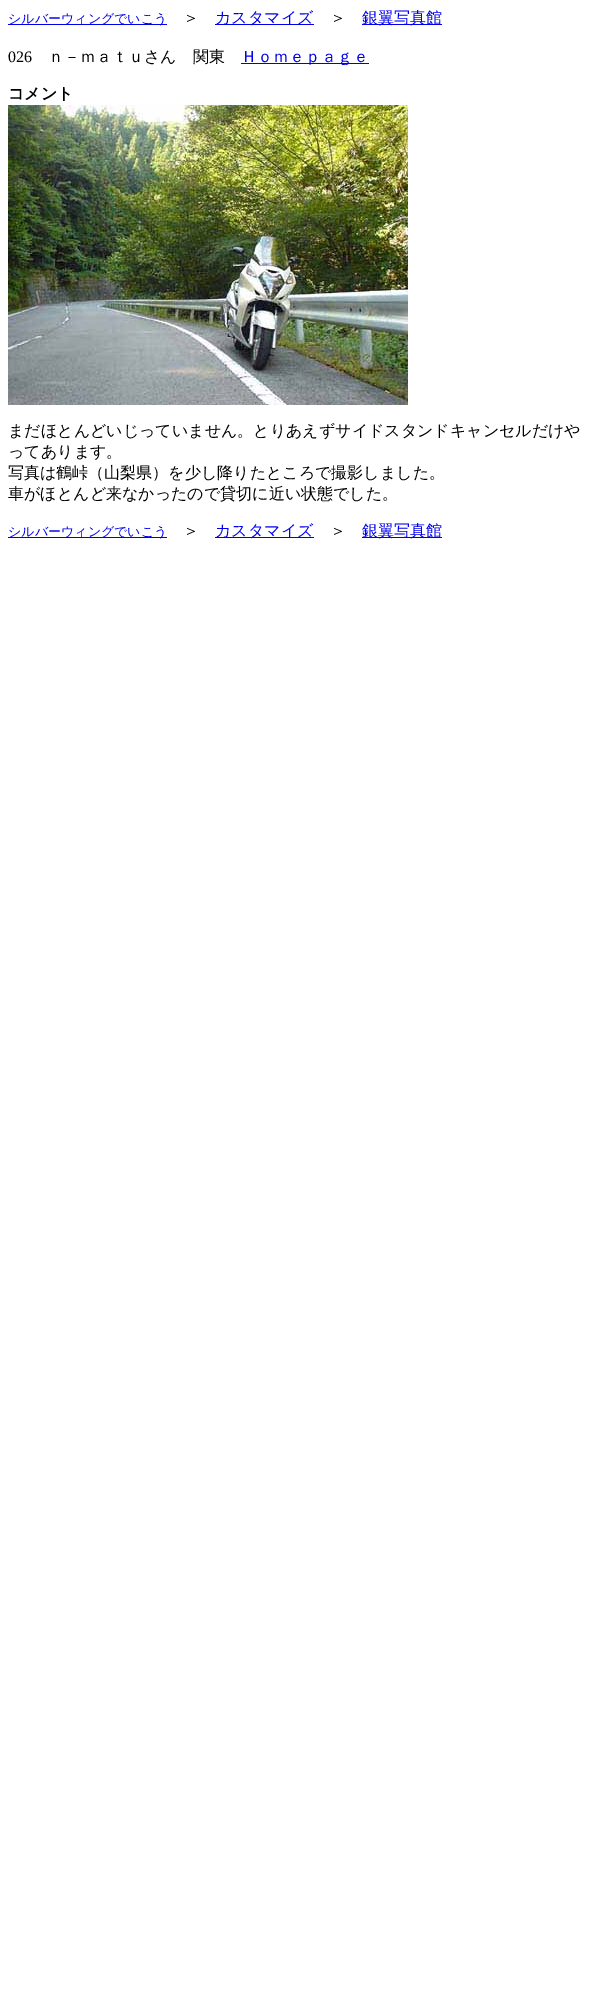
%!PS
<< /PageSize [605 2010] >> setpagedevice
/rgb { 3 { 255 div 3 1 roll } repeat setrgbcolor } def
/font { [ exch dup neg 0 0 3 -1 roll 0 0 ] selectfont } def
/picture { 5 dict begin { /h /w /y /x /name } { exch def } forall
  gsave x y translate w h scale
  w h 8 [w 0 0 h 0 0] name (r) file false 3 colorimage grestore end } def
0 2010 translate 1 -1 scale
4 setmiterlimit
255 255 255 rgb
0 0 605 2010 rectfill
[
  [8 24 159 1 0 0 238]
  [215 24 99 1 0 0 238]
  [362 24 80 1 0 0 238]
  [241 63 128 1 0 0 238]
] { aload pop rgb rectfill } forall
(img/1.rgb) 8 105 400 300 picture
[
  [8 537 159 1 0 0 238]
  [215 537 99 1 0 0 238]
  [362 537 80 1 0 0 238]
] { aload pop rgb rectfill } forall
/WenQuanYiZenHei-Medium 13 font
8 23 moveto (シルバーウィングでいこう) show
/WenQuanYiZenHei-Medium 16 font
0 0 0 rgb
183 23 moveto (＞) show
0 0 238 rgb
215 23 moveto (カスタマイズ) show
0 0 0 rgb
330 23 moveto (＞) show
0 0 238 rgb
362 23 moveto (銀翼写真館) show
/LiberationSerif-Regular 16 font
0 0 0 rgb
8 62 moveto (026) show
/WenQuanYiZenHei-Medium 16 font
48 62 moveto (ｎ－ｍａｔｕさん　関東) show
0 0 238 rgb
241 62 moveto (Ｈｏｍｅｐａｇｅ) show
/WenQuanYiZenHei-Bold 16 font
0 0 0 rgb
8 99 moveto (コメント) show
/WenQuanYiZenHei-Medium 16 font
[
  [(まだほとんどいじっていません。とりあえずサイドスタンドキャンセルだけや) 8 436]
  [(ってあります。) 8 457]
  [(写真は鶴峠（山梨県）を少し降りたところで撮影しました。) 8 478]
  [(車がほとんど来なかったので貸切に近い状態でした。) 8 499]
] { aload pop moveto show } forall
/WenQuanYiZenHei-Medium 13 font
0 0 238 rgb
8 536 moveto (シルバーウィングでいこう) show
/WenQuanYiZenHei-Medium 16 font
0 0 0 rgb
183 536 moveto (＞) show
0 0 238 rgb
215 536 moveto (カスタマイズ) show
0 0 0 rgb
330 536 moveto (＞) show
0 0 238 rgb
362 536 moveto (銀翼写真館) show
showpage
